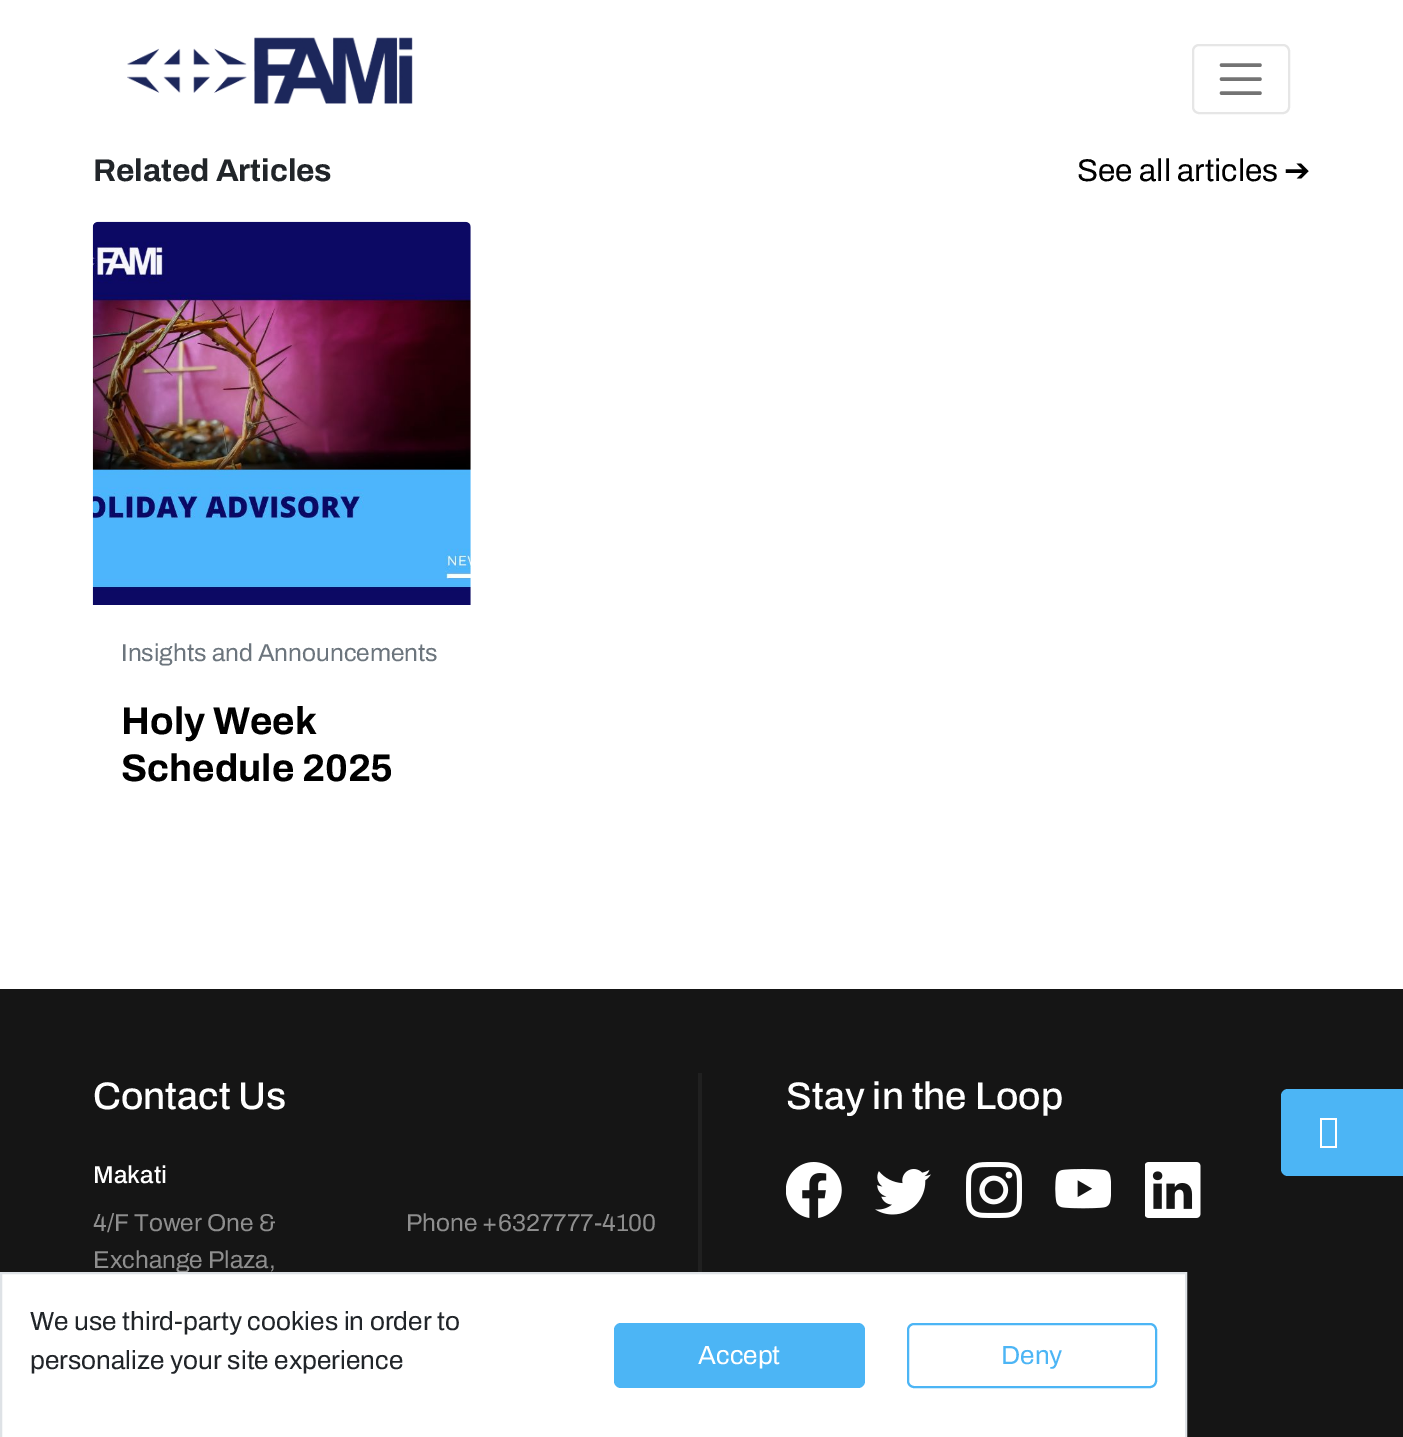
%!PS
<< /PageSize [1403 1437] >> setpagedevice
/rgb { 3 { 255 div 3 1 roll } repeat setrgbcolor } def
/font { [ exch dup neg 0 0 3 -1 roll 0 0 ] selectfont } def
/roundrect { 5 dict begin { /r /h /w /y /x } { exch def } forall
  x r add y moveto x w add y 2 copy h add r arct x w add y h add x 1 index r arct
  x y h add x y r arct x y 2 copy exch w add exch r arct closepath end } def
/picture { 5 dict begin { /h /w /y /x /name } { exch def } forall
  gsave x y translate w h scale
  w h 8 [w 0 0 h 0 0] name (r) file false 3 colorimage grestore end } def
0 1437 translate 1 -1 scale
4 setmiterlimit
255 255 255 rgb
0 0 1403 1437 rectfill
(img/1.rgb) 127 37 286 67 picture
230 230 230 rgb
2 setlinewidth
1193 45 96 68 6 roundrect stroke
115 115 115 rgb
3.5 setlinewidth
1 setlinecap
1221.5 65 moveto 1260 65 lineto 1221.5 79 moveto 1260 79 lineto 1221.5 93 moveto 1260 93 lineto stroke
(img/2.rgb) 92 221 379 384 picture
21 21 21 rgb
0 989 1403 448 rectfill
32 32 32 rgb
698 1073 4 199 rectfill
(img/3.rgb) 786 1162 56 56 picture
(img/4.rgb) 875 1169 56 46 picture
(img/5.rgb) 966 1162 56 56 picture
(img/6.rgb) 1055 1169 56 40 picture
(img/7.rgb) 1145 1162 56 56 picture
76 181 245 rgb
1281 1089 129 87 7 roundrect fill
255 255 255 rgb
1320 1148 moveto 1320 1118 lineto 1337 1118 lineto 1337 1148 lineto closepath 1322 1146 moveto 1335 1146 lineto 1335 1120 lineto 1322 1120 lineto closepath fill
/Archivo-Bold 31.5 font
33 37 41 rgb
93 181 moveto (Related Articles) show
/Archivo-Regular 31.5 font
0 0 0 rgb
1077 181 moveto (See all articles) show
/DejaVuSans-Regular 31.5 font
1284 181 moveto (➔) show
/Archivo-Regular 24.5 font
108 117 125 rgb
121 661 moveto (Insights and Announcements) show
/Archivo-Bold 38.5 font
0 0 0 rgb
121 734 moveto (Holy Week) show
121 781 moveto (Schedule 2025) show
/Archivo-Medium 38.5 font
255 255 255 rgb
93 1109 moveto (Contact Us) show
/Archivo-Medium 24.5 font
93 1183 moveto (Makati) show
/Archivo-Regular 24.5 font
142 142 142 rgb
[
  [(4/F Tower One &) 93 1231]
  [(Exchange Plaza,) 93 1268]
  [(Phone +6327777-4100) 406 1231]
] { aload pop moveto show } forall
/Archivo-Medium 38.5 font
255 255 255 rgb
786 1109 moveto (Stay in the Loop) show
1 1273 moveto 1186 1273 lineto 1186 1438 lineto 1 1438 lineto closepath gsave fill grestore
222 226 230 rgb
2 setlinewidth
0 setlinecap
stroke
/Archivo-Regular 26.25 font
33 37 41 rgb
30 1330 moveto (We use third-party cookies in order to) show
30 1369 moveto (personalize your site experience) show
76 181 245 rgb
614 1323 251 65 7 roundrect fill
255 255 255 rgb
698 1364 moveto (Accept) show
76 181 245 rgb
908 1324 248 63 6 roundrect stroke
1001 1364 moveto (Deny) show
showpage
